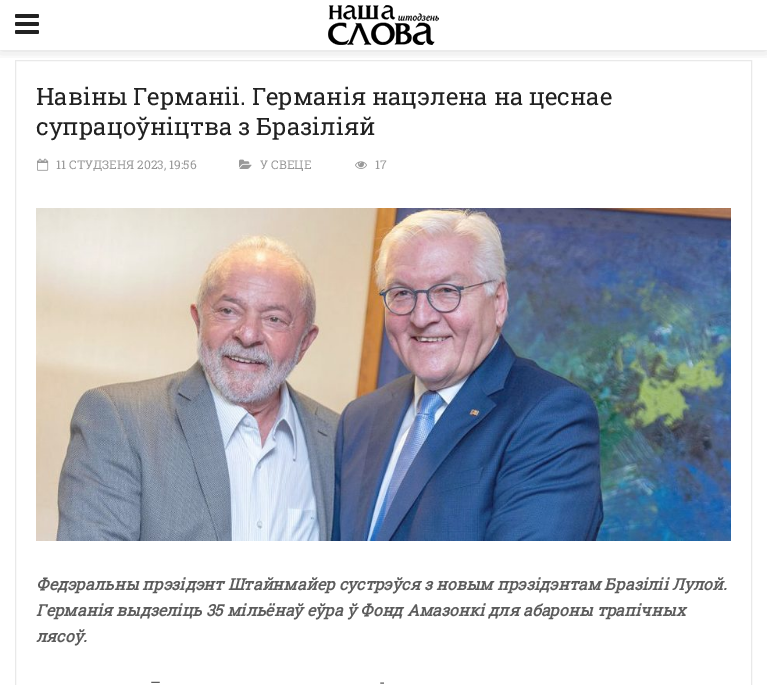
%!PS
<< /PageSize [767 685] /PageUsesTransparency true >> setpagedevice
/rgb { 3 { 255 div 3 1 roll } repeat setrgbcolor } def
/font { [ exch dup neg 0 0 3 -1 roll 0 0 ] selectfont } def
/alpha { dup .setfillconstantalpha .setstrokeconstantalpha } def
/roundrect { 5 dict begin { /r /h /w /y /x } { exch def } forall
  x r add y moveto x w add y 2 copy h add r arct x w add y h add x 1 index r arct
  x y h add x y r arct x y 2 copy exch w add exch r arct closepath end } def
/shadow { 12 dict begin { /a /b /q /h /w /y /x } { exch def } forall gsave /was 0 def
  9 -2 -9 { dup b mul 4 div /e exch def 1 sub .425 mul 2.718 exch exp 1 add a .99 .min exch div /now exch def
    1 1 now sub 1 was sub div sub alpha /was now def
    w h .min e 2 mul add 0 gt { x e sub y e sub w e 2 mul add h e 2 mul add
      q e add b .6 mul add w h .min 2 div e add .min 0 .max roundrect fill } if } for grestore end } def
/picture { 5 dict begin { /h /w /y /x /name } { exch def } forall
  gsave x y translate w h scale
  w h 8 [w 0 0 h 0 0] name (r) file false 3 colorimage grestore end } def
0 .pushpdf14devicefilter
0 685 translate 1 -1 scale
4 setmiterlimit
255 255 255 rgb
0 0 767 685 rectfill
233 233 233 rgb
15.5 60.5 736 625 rectstroke
gsave
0 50 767 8 rectclip
0 0 0 rgb
0 0 767 50 0 7.5 0.15 shadow
grestore
(img/1.rgb) 15 14 24 20 picture
(img/2.rgb) 328 5 111 40 picture
(img/3.rgb) 37 158 12 13 picture
(img/4.rgb) 239 159 13 10 picture
(img/5.rgb) 355 161 12 8 picture
(img/6.rgb) 36 208 695 333 picture
/RobotoSlab-Regular 24 font
34 34 34 rgb
36 105 moveto (Навіны Германіі. Германія нацэлена на цеснае) show
36 135 moveto (супрацоўніцтва з Бразіліяй) show
/RobotoSlab-Regular 12 font
153 153 153 rgb
[
  [(11 СТУДЗЕНЯ 2023, 19:56) 56 169]
  [(У СВЕЦЕ) 260 169]
  [(17) 375 169]
] { aload pop moveto show } forall
/RobotoSlab-BoldItalic 16 font
92 92 92 rgb
[
  [(Федэральны прэзідэнт Штайнмайер сустрэўся з новым прэзідэнтам Бразіліі Лулой.) 36 590]
  [(Германія выдзеліць 35 мільёнаў еўра ў Фонд Амазонкі для абароны трапічных) 36 616]
  [(лясоў.) 36 642]
] { aload pop moveto show } forall
/RobotoSlab-Regular 16 font
150 688 moveto (–) show
379 688 moveto (-) show
.poppdf14devicefilter showpage
